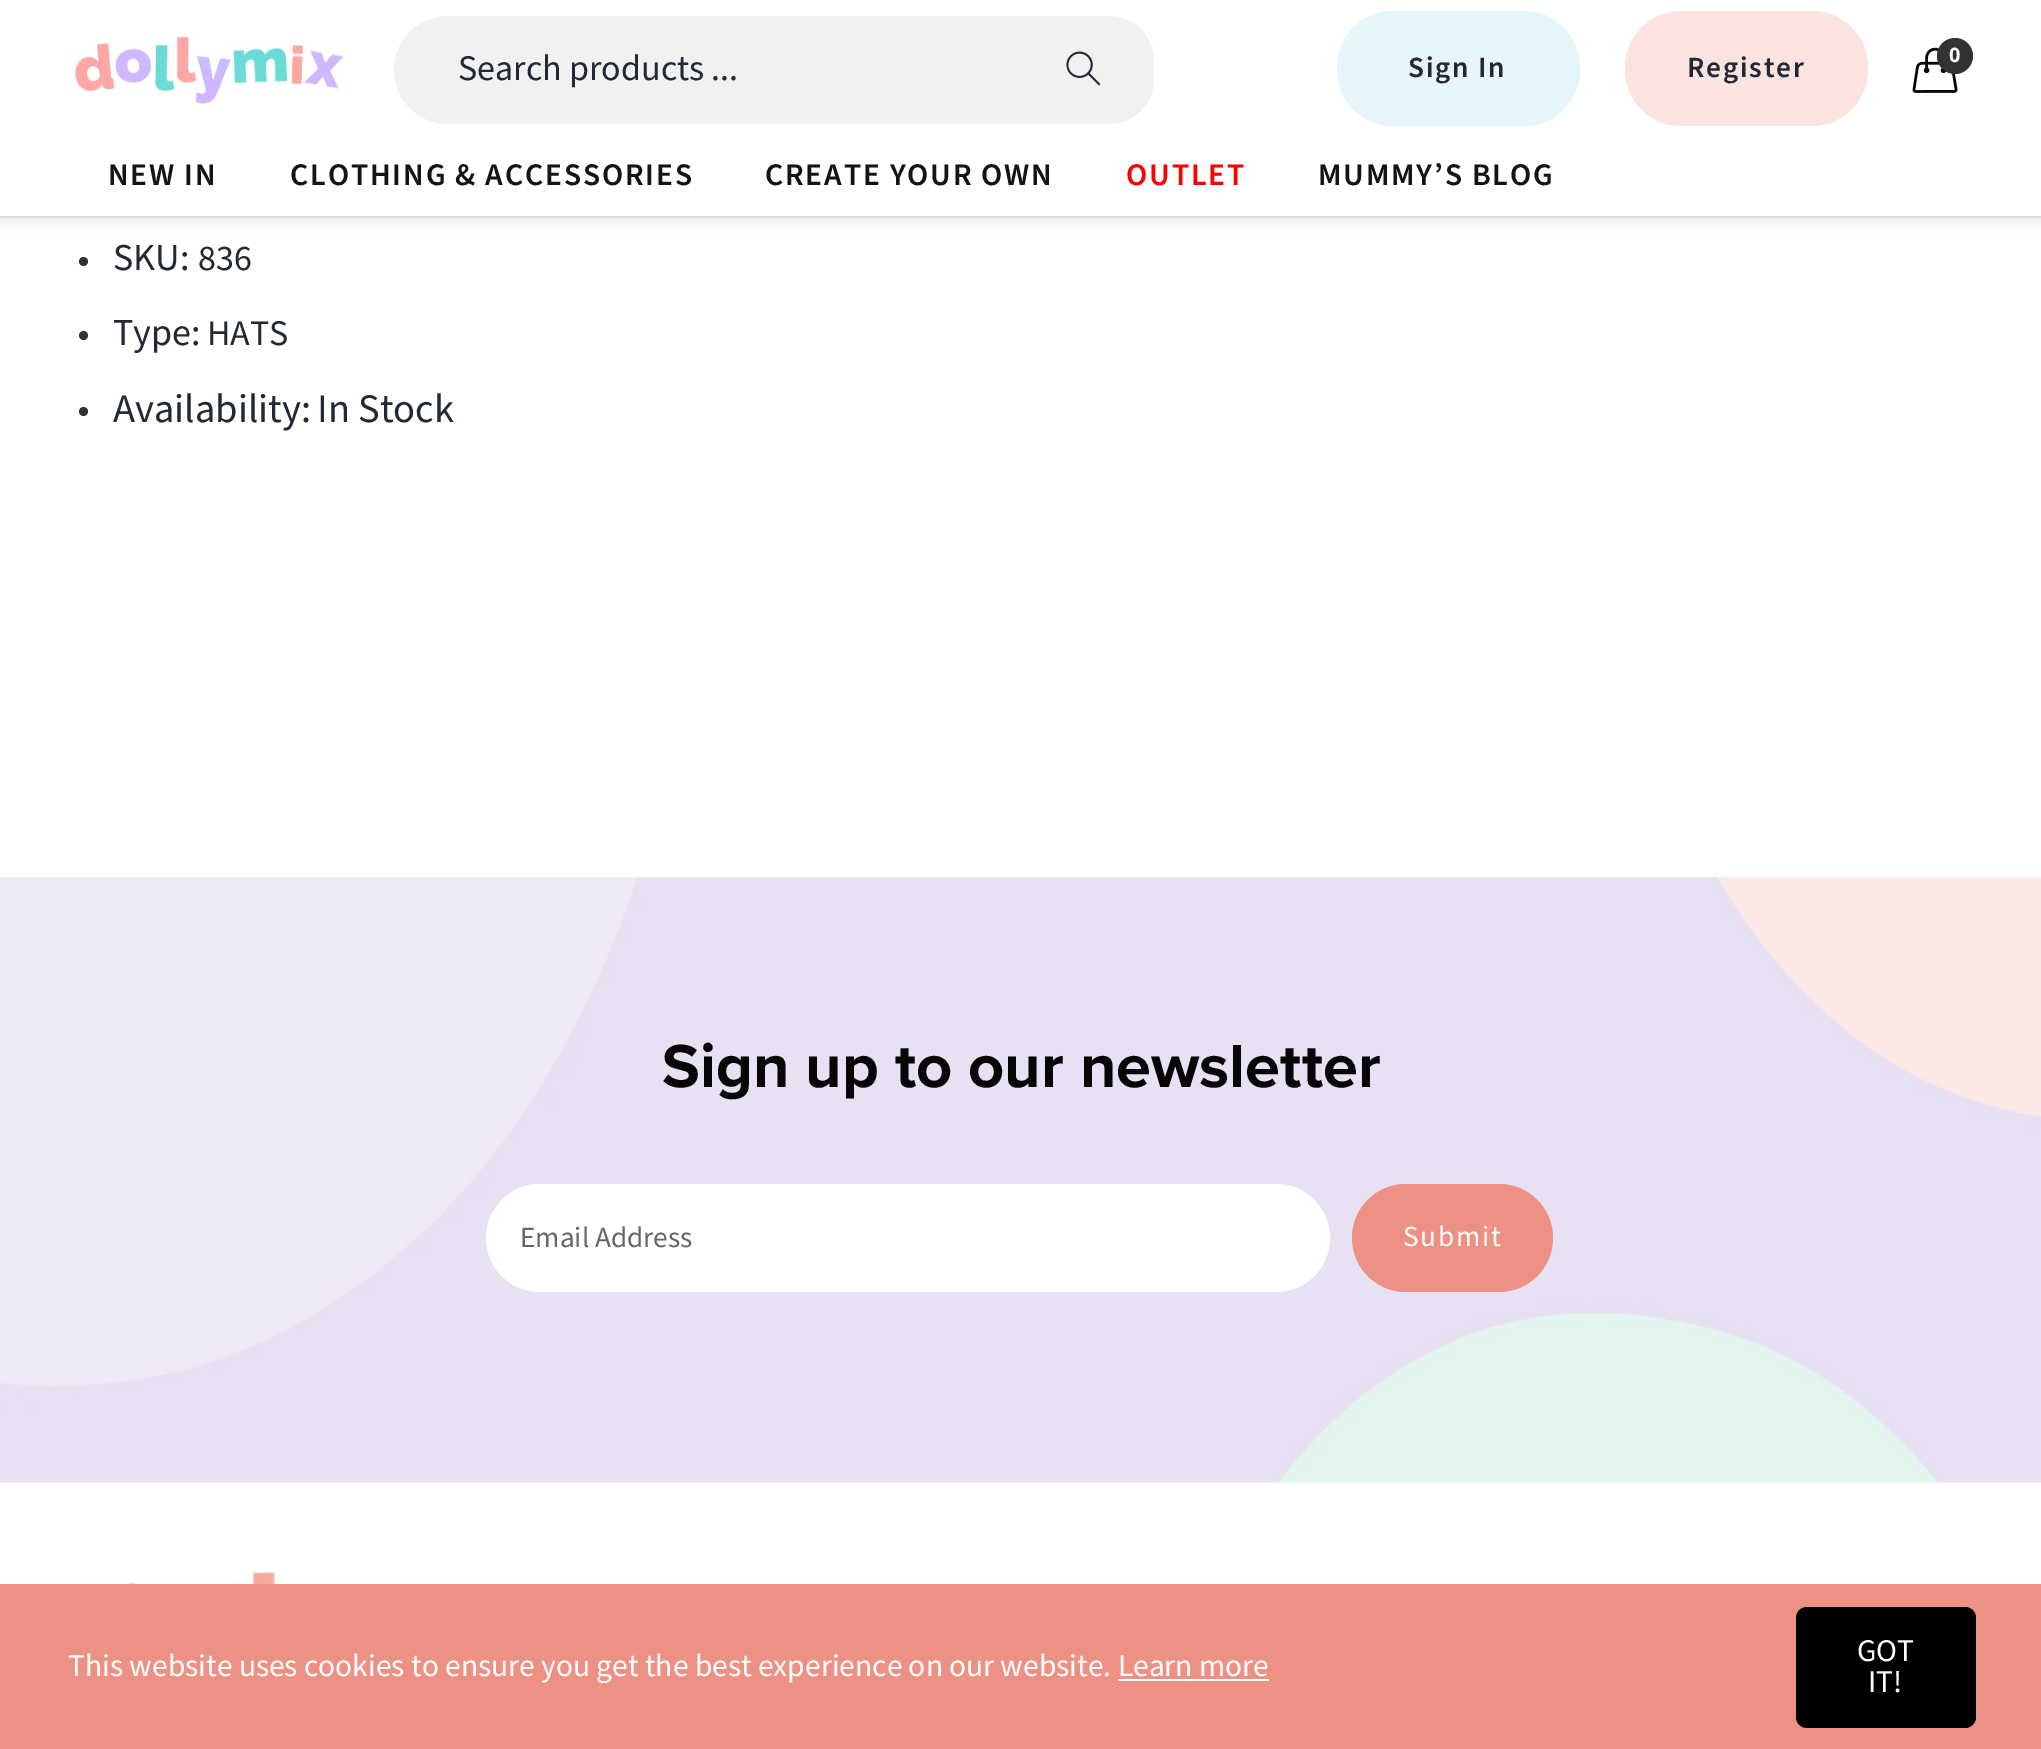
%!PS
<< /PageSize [2041 1749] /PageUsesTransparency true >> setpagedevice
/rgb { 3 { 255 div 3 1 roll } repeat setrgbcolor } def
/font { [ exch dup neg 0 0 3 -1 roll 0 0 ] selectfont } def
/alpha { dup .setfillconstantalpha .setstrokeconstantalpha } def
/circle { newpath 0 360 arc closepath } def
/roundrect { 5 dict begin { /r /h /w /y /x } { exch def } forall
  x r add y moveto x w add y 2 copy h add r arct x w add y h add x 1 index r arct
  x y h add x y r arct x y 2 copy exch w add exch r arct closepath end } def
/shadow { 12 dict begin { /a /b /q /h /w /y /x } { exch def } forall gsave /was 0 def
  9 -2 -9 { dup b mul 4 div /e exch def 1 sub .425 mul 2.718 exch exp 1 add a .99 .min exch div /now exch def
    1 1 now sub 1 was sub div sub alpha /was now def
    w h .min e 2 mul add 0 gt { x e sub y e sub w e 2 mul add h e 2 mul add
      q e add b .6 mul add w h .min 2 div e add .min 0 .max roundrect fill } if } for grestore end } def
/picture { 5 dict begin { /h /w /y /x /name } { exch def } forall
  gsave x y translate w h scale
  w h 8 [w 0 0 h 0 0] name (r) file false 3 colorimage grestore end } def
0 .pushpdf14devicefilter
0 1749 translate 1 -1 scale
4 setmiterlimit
255 255 255 rgb
0 0 2041 1749 rectfill
0 0 0 rgb
0 2 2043 219 0 5.5 0.1 shadow
255 255 255 rgb
0 0 2041 216 rectfill
221 221 221 rgb
0 216 2041 2 rectfill
(img/1.rgb) 75 36 269 68 picture
241 241 242 rgb
394 16 760 108 54 roundrect fill
1064 16 90 108 45 roundrect fill
(img/2.rgb) 1066 51 35 35 picture
229 245 249 rgb
1337 11 243 115 56 roundrect fill
251 228 224 rgb
1625 11 243 115 56 roundrect fill
(img/3.rgb) 1912 47 46 46 picture
51 51 51 rgb
1955 56 18 circle fill
83.5 261.5 4.5 circle fill
83.5 335.5 4.5 circle fill
83.5 411.5 4.5 circle fill
(img/4.rgb) 0 877 2041 606 picture
255 255 255 rgb
486 1184 844 108 54 roundrect fill
237 145 132 rgb
1352 1184 201 108 54 roundrect fill
(img/5.rgb) 127 1572 148 12 picture
0 1584 2041 165 rectfill
0 0 0 rgb
1796 1607 180 121 11 roundrect fill
/SourceSansPro-Regular 36 font
34 40 52 rgb
458 80 moveto (Search products ...) show
/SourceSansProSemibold-SemiBold 29.25 font
1408 77 moveto 1.8 0 (Sign In) ashow
1687 77 moveto 1.8 0 (Register) ashow
/OpenSans-Bold 20 font
254 254 254 rgb
1949 62 moveto 1.8 0 (0) ashow
/SourceSansProSemibold-SemiBold 31.5 font
20 20 20 rgb
108 185 moveto 1.8 0 (NEW IN) ashow
290 185 moveto 1.8 0 (CLOTHING & ACCESSORIES) ashow
765 185 moveto 1.8 0 (CREATE YOUR OWN) ashow
255 0 0 rgb
1126 185 moveto 1.8 0 (OUTLET) ashow
20 20 20 rgb
1318 185 moveto 1.8 0 (MUMMY’S BLOG) ashow
/SourceSansPro-Regular 38 font
34 40 52 rgb
113 270 moveto (SKU:) show
/SourceSansPro-Regular 36 font
198 270 moveto (836) show
/SourceSansPro-Regular 38 font
113 345 moveto (Type:) show
/SourceSansPro-Regular 36 font
207 345 moveto (HATS) show
/SourceSansPro-Regular 40.5 font
113 422 moveto (Availability:) show
317 422 moveto (In Stock) show
/ProximaNova-Bold 63 font
6 6 6 rgb
662 1087 moveto (Sign up to our newsletter) show
/SourceSansPro-Regular 29.25 font
102 102 102 rgb
520 1247 moveto (Email Address) show
254 254 254 rgb
1403 1246 moveto 1.8 0 (Submit) ashow
/SourceSansPro-Regular 31.5 font
68 1676 moveto (This website uses cookies to ensure you get the best experience on our website. Learn more) show
255 255 255 rgb
1118 1679 151 2 rectfill
254 254 254 rgb
1857 1661 moveto (GOT) show
1868 1692 moveto (IT!) show
.poppdf14devicefilter showpage
